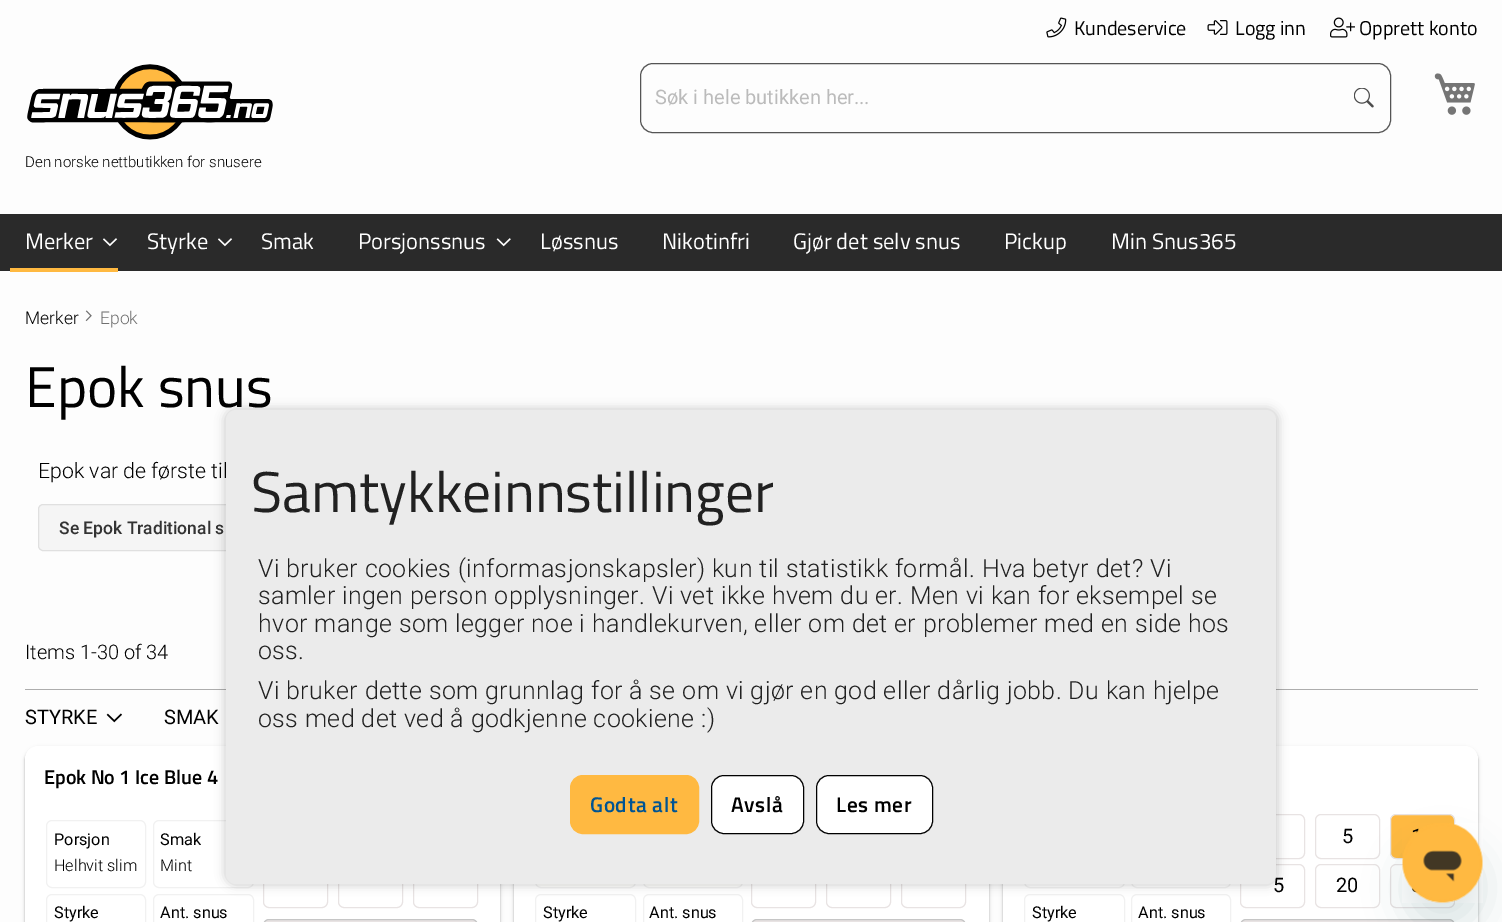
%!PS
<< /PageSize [1502 922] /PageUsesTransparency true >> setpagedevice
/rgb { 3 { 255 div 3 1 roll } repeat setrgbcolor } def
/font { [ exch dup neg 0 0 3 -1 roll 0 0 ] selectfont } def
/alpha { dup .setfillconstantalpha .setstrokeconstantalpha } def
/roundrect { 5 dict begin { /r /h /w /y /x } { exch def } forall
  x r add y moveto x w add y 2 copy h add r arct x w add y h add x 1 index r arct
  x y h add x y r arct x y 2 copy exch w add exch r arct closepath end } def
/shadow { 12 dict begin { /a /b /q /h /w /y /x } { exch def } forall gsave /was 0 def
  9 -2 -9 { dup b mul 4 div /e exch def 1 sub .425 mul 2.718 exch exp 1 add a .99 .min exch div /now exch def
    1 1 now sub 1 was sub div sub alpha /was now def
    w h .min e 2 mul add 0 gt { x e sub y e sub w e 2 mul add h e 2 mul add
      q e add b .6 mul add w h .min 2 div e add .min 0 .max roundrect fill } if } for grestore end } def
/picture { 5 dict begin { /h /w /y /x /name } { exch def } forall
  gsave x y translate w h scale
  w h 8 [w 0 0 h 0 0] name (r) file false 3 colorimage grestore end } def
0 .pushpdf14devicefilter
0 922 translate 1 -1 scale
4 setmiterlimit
253 253 253 rgb
0 0 1502 922 rectfill
(img/1.rgb) 1046 17 21 21 picture
(img/2.rgb) 1207 20 21 15 picture
(img/3.rgb) 1330 17 25 21 picture
85 85 85 rgb
640.5 63.5 750 69 12.5 roundrect stroke
(img/4.rgb) 1354 88 20 20 picture
(img/5.rgb) 1434 73 41 42 picture
(img/6.rgb) 27 64 246 76 picture
42 42 42 rgb
0 214 1502 57 rectfill
255 185 65 rgb
10 268 108 4 rectfill
(img/7.rgb) 103 238 15 9 picture
(img/7.rgb) 218 238 15 9 picture
(img/8.rgb) 496 238 15 9 picture
(img/9.rgb) 85 310 7 12 picture
245 245 245 rgb
38.5 504.5 285 46 4.5 roundrect gsave fill grestore
224 224 224 rgb
stroke
173 173 173 rgb
25 689 1453 1 rectfill
(img/10.rgb) 106 713 16 10 picture
0 0 0 rgb
25 748 475 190 13 1 0.24 shadow
25 748 475 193 13 2 0.12 shadow
255 255 255 rgb
25 746 475 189 13 roundrect fill
241 241 241 rgb
46.5 820.5 99 67 5.5 roundrect stroke
153.5 820.5 100 67 5.5 roundrect stroke
46.5 894.5 99 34 5.5 roundrect stroke
153.5 894.5 100 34 5.5 roundrect stroke
232 227 227 rgb
263.5 864.5 64 43 5.5 roundrect stroke
338.5 864.5 64 43 5.5 roundrect stroke
413.5 864.5 64 43 5.5 roundrect stroke
263.5 919.5 214 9 5.5 roundrect gsave fill grestore
198 198 198 rgb
stroke
0 0 0 rgb
514 748 475 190 13 1 0.24 shadow
514 748 475 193 13 2 0.12 shadow
255 255 255 rgb
514 884 475 38 rectfill
255 255 253 rgb
535.5 820.5 100 67 5.5 roundrect gsave fill grestore
241 241 241 rgb
stroke
255 255 253 rgb
643.5 820.5 99 67 5.5 roundrect gsave fill grestore
241 241 241 rgb
stroke
535.5 894.5 100 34 5.5 roundrect stroke
643.5 894.5 99 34 5.5 roundrect stroke
232 227 227 rgb
751.5 864.5 64 43 5.5 roundrect stroke
826.5 864.5 64 43 5.5 roundrect stroke
901.5 864.5 64 43 5.5 roundrect stroke
751.5 919.5 214 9 5.5 roundrect gsave fill grestore
198 198 198 rgb
stroke
0 0 0 rgb
1003 748 475 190 13 1 0.24 shadow
1003 748 475 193 13 2 0.12 shadow
255 255 255 rgb
1003 746 475 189 13 roundrect fill
232 227 227 rgb
1240.5 814.5 64 44 5.5 roundrect stroke
1315.5 814.5 64 44 5.5 roundrect stroke
255 185 65 rgb
1390.5 814.5 64 44 5.5 roundrect gsave fill grestore
232 227 227 rgb
stroke
1240.5 864.5 64 43 5.5 roundrect stroke
1315.5 864.5 64 43 5.5 roundrect stroke
1390.5 864.5 64 43 5.5 roundrect stroke
1240.5 919.5 214 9 5.5 roundrect gsave fill grestore
198 198 198 rgb
stroke
241 241 241 rgb
1024.5 820.5 100 67 5.5 roundrect stroke
1131.5 820.5 99 67 5.5 roundrect stroke
1024.5 894.5 100 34 5.5 roundrect stroke
1131.5 894.5 99 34 5.5 roundrect stroke
0 0 0 rgb
225 409 1053 476 11 5 0.2 shadow
23 73 77 rgb
1403 848 80 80 40 19 0.15 shadow
(img/11.rgb) 1402 823 81 80 picture
/TitilliumWeb-Regular 20 font
0 0 0 rgb
[
  [(Kundeservice) 1074 35]
  [(Logg inn) 1235 35]
  [(Opprett konto) 1359 35]
] { aload pop moveto show } forall
/Roboto-Regular 20 font
187 187 187 rgb
655 104 moveto (Søk i hele butikken her...) show
/Roboto-Light 15 font
0 0 0 rgb
25 167 moveto (Den norske nettbutikken for snusere) show
/TitilliumWeb-Regular 22.5 font
255 255 255 rgb
[
  [(Merker) 25 249]
  [(Styrke) 147 249]
  [(Smak) 261 249]
  [(Porsjonssnus) 358 249]
  [(Løssnus) 540 249]
  [(Nikotinfri) 662 249]
  [(Gjør det selv snus) 793 249]
  [(Pickup) 1004 249]
  [(Min Snus365) 1111 249]
] { aload pop moveto show } forall
/Roboto-Light 17.5 font
0 0 0 rgb
25 324 moveto (Merker) show
112 112 112 rgb
100 324 moveto (Epok) show
/TitilliumWeb-Regular 57.5 font
0 0 0 rgb
25 407 moveto (Epok snus) show
/Roboto-Light 21.25 font
38 478 moveto (Epok var de første til) show
/Roboto-Medium 17.5 font
51 51 51 rgb
59 534 moveto (Se Epok Traditional s) show
/Roboto-Light 20 font
0 0 0 rgb
25 659 moveto (Items 1-30 of 34) show
/Roboto-Regular 20 font
25 724 moveto (STYRKE) show
164 724 moveto (SMAK) show
/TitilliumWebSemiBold-SemiBold 20 font
44 784 moveto (Epok No 1 Ice Blue 4) show
/Roboto-Regular 16.25 font
54 845 moveto (Porsjon) show
/Roboto-Light 16.25 font
54 871 moveto (Helhvit slim) show
/Roboto-Regular 16.25 font
160 845 moveto (Smak) show
/Roboto-Light 16.25 font
160 871 moveto (Mint) show
/Roboto-Regular 16.25 font
[
  [(Styrke) 54 918]
  [(Ant. snus) 160 918]
  [(Styrke) 543 918]
  [(Ant. snus) 649 918]
] { aload pop moveto show } forall
/Roboto-Regular 20 font
[
  [(5) 1342 843]
  [(5) 1273 892]
  [(20) 1336 892]
] { aload pop moveto show } forall
/Roboto-Regular 16.25 font
1032 918 moveto (Styrke) show
1138 918 moveto (Ant. snus) show
235 235 235 rgb
226 410 1050 474 10 roundrect fill
/TitilliumWeb-Regular 57.5 font
33 33 33 rgb
251 512 moveto (Samtykkeinnstillinger) show
/Roboto-Light 25 font
258 577 moveto 0.38 0 (Vi bruker cookies \(informasjonskapsler\) kun til statistikk formål. Hva betyr det? Vi) ashow
258 604 moveto 0.38 0 (samler ingen person opplysninger. Vi vet ikke hvem du er. Men vi kan for eksempel se) ashow
258 632 moveto 0.38 0 (hvor mange som legger noe i handlekurven, eller om det er problemer med en side hos) ashow
258 659 moveto 0.38 0 (oss.) ashow
258 699 moveto 0.38 0 (Vi bruker dette som grunnlag for å se om vi gjør en god eller dårlig jobb. Du kan hjelpe) ashow
258 727 moveto 0.38 0 (oss med det ved å godkjenne cookiene :\)) ashow
255 185 65 rgb
570.5 775.5 128 58 12.5 roundrect gsave fill grestore
stroke
/TitilliumWebSemiBold-SemiBold 21.25 font
0 84 147 rgb
590 812 moveto 0.6 0 (Godta alt) ashow
255 255 255 rgb
711.5 775.5 92 58 12.5 roundrect gsave fill grestore
0 0 0 rgb
stroke
731 812 moveto 0.6 0 (Avslå) ashow
255 255 255 rgb
816.5 775.5 116 58 12.5 roundrect gsave fill grestore
0 0 0 rgb
stroke
836 812 moveto 0.6 0 (Les mer) ashow
.poppdf14devicefilter showpage
